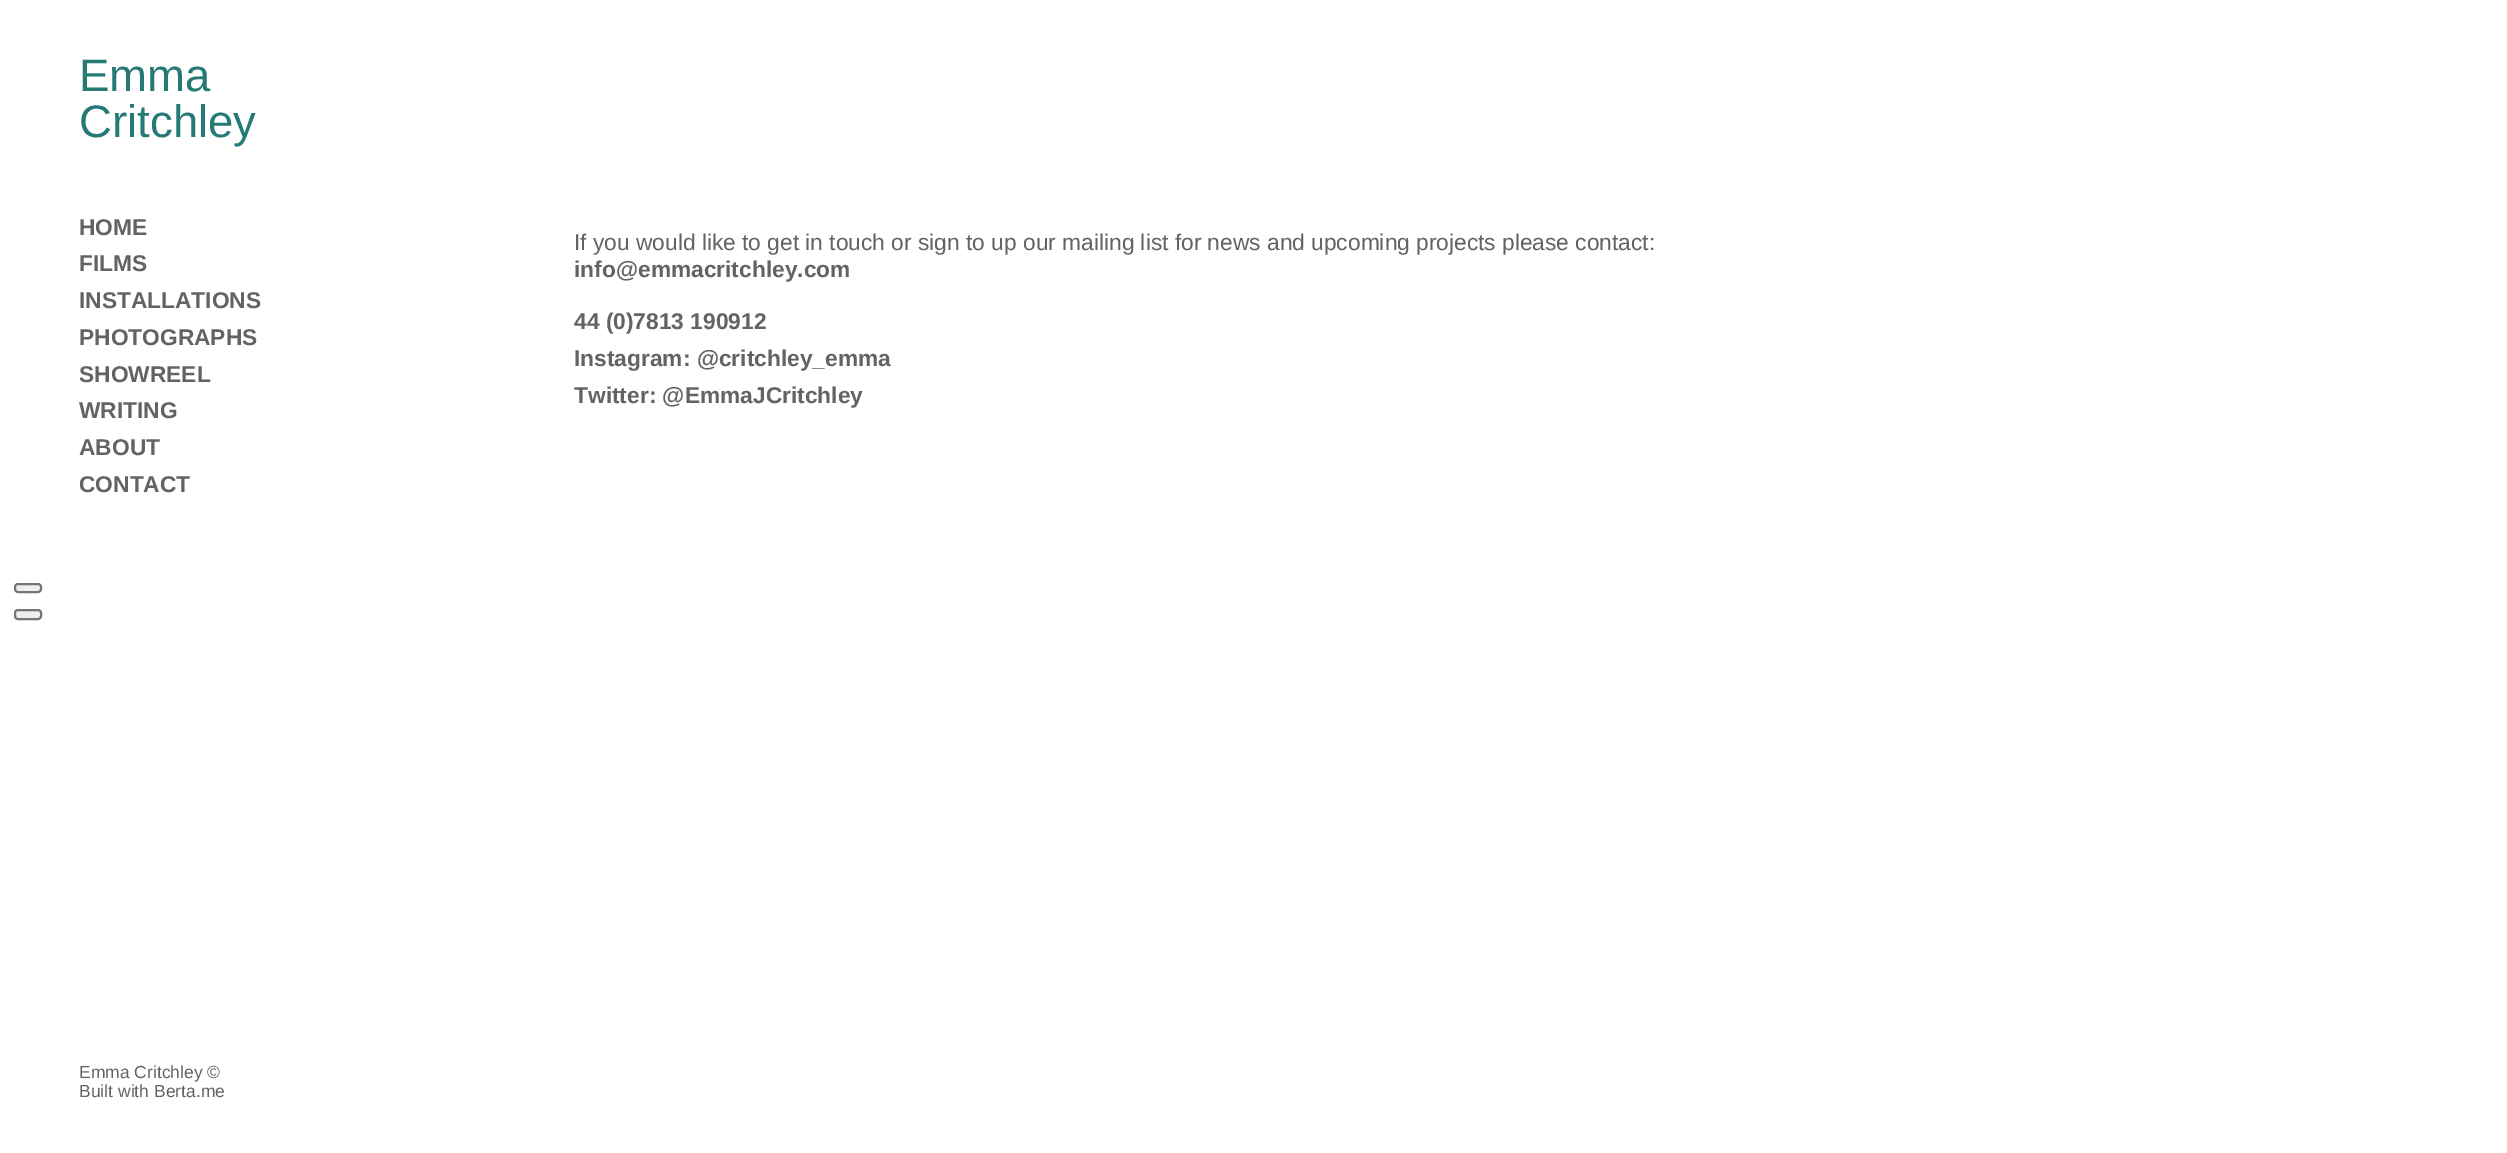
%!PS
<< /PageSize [2507 1153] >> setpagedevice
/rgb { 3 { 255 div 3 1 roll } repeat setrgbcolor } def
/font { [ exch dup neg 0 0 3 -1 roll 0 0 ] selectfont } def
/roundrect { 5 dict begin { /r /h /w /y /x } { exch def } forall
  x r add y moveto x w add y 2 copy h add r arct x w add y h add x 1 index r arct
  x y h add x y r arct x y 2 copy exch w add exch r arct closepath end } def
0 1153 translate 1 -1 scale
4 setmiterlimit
255 255 255 rgb
0 0 2507 1153 rectfill
239 239 239 rgb
15 584 26 8 3 roundrect gsave fill grestore
118 118 118 rgb
2 setlinewidth
stroke
239 239 239 rgb
15 610 26 9 3 roundrect gsave fill grestore
118 118 118 rgb
stroke
/LiberationSans-Regular 45.5 font
37 122 118 rgb
79 91 moveto (Emma) show
79 137 moveto (Critchley) show
/LiberationSans-Bold 22.75 font
99 99 99 rgb
[
  [(HOME) 79 235]
  [(FILMS) 79 271]
  [(INSTALLATIONS) 79 308]
  [(PHOTOGRAPHS) 79 345]
  [(SHOWREEL) 79 382]
  [(WRITING) 79 418]
  [(ABOUT) 79 455]
  [(CONTACT) 79 492]
] { aload pop moveto show } forall
/LiberationSans-Regular 17.5 font
[
  [(Emma Critchley ©) 79 1078]
  [(Built with) 79 1097]
  [(Berta.me) 154 1097]
] { aload pop moveto show } forall
/LiberationSans-Regular 22.75 font
574 250 moveto (If you would like to get in touch or sign to up our mailing list for news and upcoming projects please contact:) show
/LiberationSans-Bold 22.75 font
[
  [(info@emmacritchley.com) 574 277]
  [(44 \(0\)7813 190912) 574 329]
  [(Instagram: @critchley_emma) 574 366]
  [(Twitter: @EmmaJCritchley) 574 403]
] { aload pop moveto show } forall
showpage
